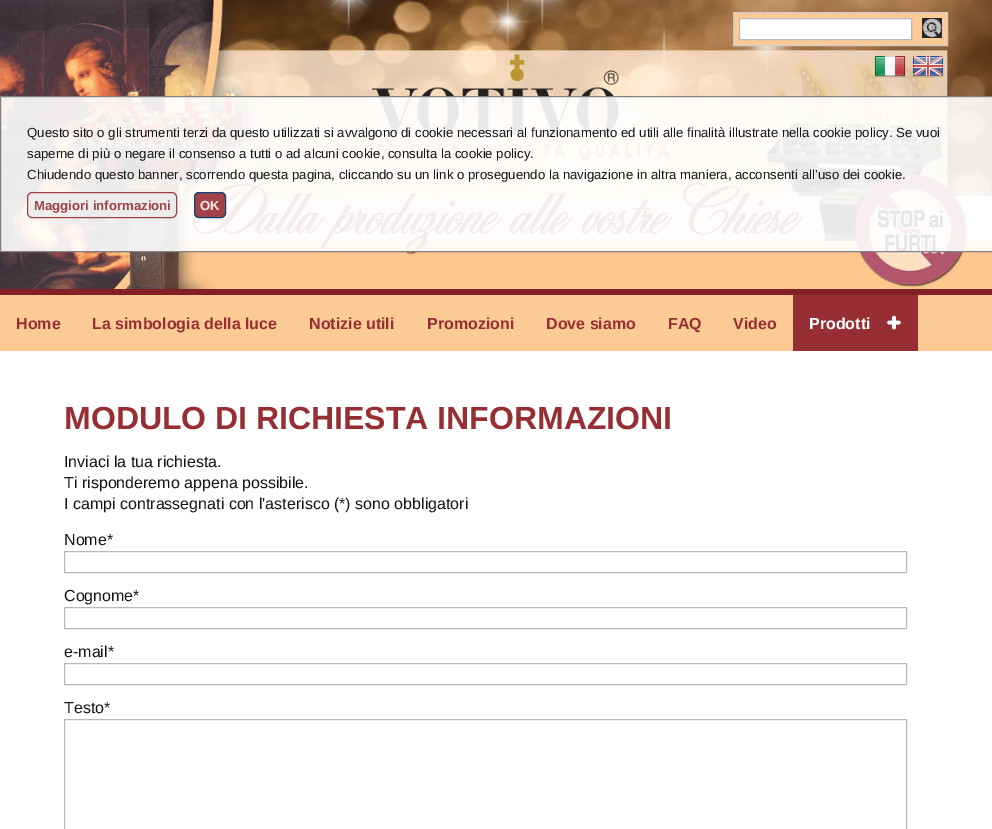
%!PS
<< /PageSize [992 829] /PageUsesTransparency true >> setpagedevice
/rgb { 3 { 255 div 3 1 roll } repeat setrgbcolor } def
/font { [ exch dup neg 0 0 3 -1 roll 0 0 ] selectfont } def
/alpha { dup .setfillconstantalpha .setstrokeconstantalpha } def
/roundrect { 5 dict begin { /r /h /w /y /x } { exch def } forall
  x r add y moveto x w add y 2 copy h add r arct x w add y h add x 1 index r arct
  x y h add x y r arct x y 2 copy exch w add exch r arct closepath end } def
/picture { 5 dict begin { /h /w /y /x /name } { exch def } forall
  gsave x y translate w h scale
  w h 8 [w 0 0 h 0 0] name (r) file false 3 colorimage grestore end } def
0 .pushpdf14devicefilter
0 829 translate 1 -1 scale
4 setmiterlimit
255 255 255 rgb
0 0 992 829 rectfill
130 31 39 rgb
0 289 992 6 rectfill
(img/1.rgb) 0 0 992 289 picture
252 202 148 rgb
733.5 12.5 moveto 947.5 12.5 lineto 947.5 45.5 lineto 733.5 45.5 lineto closepath gsave fill grestore
204 204 204 rgb
stroke
255 255 255 rgb
739.5 18.5 moveto 911.5 18.5 lineto 911.5 39.5 lineto 739.5 39.5 lineto closepath gsave fill grestore
184 184 184 rgb
stroke
40 40 42 rgb
922 18 20 20 rectfill
(img/2.rgb) 923 18 19 19 picture
(img/3.rgb) 874 56 32 22 picture
(img/4.rgb) 912 56 32 22 picture
0.9 alpha
255 255 255 rgb
0 96 992 156 rectfill
117 117 117 rgb
0.5 96.5 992 155 rectstroke
236 236 236 rgb
27 192 150 26 5 roundrect fill
150 46 52 rgb
27.5 192.5 149 25 4.5 roundrect stroke
194 192 32 26 5 roundrect fill
0 64 128 rgb
194.5 192.5 31 25 4.5 roundrect stroke
1 alpha
252 202 148 rgb
0 295 992 56 rectfill
150 46 52 rgb
793 295 125 56 rectfill
(img/5.rgb) 887 315 14 15 picture
184 184 184 rgb
64.5 551.5 842 21 rectstroke
64.5 607.5 842 21 rectstroke
64.5 663.5 842 21 rectstroke
64.5 719.5 842 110 rectstroke
/LiberationSans-Regular 13 font
152 152 153 rgb
922 32 moveto (Cer) show
/LiberationSans-Regular 13.2 font
20 20 20 rgb
[
  [(Questo sito o gli strumenti terzi da questo utilizzati si avvalgono di cookie necessari al funzionamento ed utili alle finalità illustrate nella cookie policy. Se vuoi) 27 137]
  [(saperne di più o negare il consenso a tutti o ad alcuni cookie, consulta la cookie policy.) 27 158]
  [(Chiudendo questo banner, scorrendo questa pagina, cliccando su un link o proseguendo la navigazione in altra maniera, acconsenti all’uso dei cookie.) 27 179]
] { aload pop moveto show } forall
/LiberationSans-Bold 13.2 font
159 65 70 rgb
34 210 moveto (Maggiori informazioni) show
246 236 237 rgb
200 210 moveto (OK) show
/LiberationSans-Bold 16 font
150 46 52 rgb
[
  [(Home) 16 329]
  [(La simbologia della luce) 92 329]
  [(Notizie utili) 309 329]
  [(Promozioni) 427 329]
  [(Dove siamo) 546 329]
  [(FAQ) 668 329]
  [(Video) 733 329]
] { aload pop moveto show } forall
255 255 255 rgb
809 329 moveto (Prodotti) show
/LiberationSans-Bold 32 font
150 46 52 rgb
64 429 moveto (MODULO DI RICHIESTA INFORMAZIONI) show
/LiberationSans-Regular 16 font
20 20 20 rgb
[
  [(Inviaci la tua richiesta.) 64 467]
  [(Ti risponderemo appena possibile.) 64 488]
  [(I campi contrassegnati con l'asterisco \(*\) sono obbligatori) 64 509]
  [(Nome*) 64 545]
  [(Cognome*) 64 601]
  [(e-mail*) 64 657]
  [(Testo*) 64 713]
] { aload pop moveto show } forall
.poppdf14devicefilter showpage
